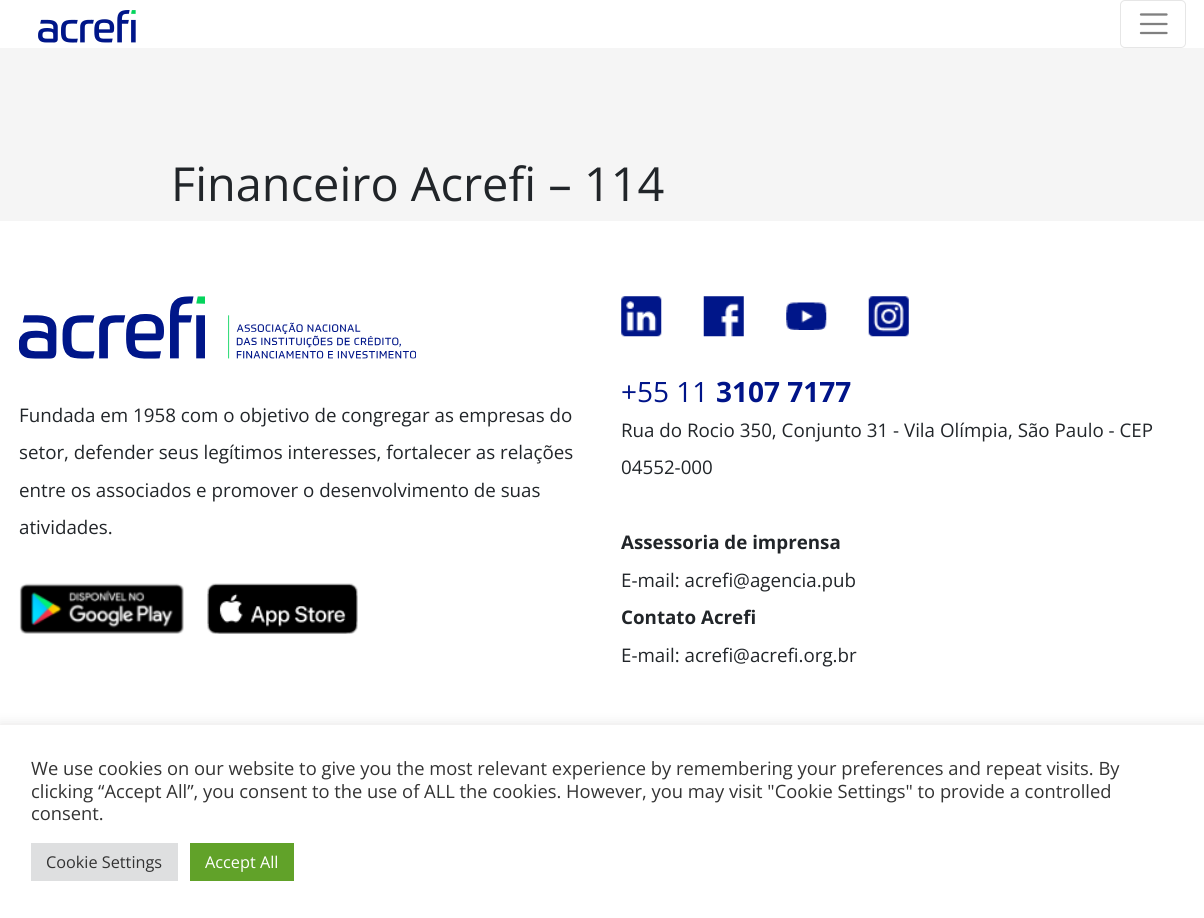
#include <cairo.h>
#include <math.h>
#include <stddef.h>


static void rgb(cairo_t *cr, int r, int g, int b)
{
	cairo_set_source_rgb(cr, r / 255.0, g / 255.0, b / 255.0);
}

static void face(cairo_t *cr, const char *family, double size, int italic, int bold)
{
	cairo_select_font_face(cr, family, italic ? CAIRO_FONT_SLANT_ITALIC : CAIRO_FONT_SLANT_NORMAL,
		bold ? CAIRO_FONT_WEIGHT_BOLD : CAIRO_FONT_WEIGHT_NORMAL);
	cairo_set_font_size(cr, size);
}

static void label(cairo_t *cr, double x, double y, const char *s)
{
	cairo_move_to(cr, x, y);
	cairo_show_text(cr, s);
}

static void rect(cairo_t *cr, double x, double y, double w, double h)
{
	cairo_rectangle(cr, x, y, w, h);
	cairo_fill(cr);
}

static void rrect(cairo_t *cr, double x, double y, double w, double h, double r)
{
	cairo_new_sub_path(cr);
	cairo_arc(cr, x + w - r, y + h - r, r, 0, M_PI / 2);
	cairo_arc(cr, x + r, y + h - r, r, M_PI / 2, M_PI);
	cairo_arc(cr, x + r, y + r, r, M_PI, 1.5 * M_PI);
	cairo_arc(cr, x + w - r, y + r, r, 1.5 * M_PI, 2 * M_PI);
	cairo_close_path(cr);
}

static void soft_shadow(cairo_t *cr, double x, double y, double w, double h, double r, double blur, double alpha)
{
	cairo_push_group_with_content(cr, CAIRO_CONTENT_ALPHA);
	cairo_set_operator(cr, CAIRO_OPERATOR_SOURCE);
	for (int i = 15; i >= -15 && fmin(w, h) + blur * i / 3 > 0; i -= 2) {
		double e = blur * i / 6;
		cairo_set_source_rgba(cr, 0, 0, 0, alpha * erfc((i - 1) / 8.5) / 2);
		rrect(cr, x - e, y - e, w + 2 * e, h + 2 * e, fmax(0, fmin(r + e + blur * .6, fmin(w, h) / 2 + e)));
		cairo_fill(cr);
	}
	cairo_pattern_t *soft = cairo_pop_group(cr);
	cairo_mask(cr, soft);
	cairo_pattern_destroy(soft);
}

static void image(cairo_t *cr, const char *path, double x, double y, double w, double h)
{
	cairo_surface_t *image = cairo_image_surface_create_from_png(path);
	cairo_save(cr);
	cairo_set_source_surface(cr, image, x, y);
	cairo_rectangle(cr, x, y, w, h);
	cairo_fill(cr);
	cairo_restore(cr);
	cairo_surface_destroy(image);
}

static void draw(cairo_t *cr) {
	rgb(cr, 245, 245, 245);
	cairo_paint(cr);
	rgb(cr, 255, 255, 255);
	rect(cr, 0, 0, 1204, 48);
	image(cr, "image0.png", 38, 10, 98, 33);
	rrect(cr, 1120.5, 0.5, 65, 47, 4.5);
	rgb(cr, 230, 230, 230);
	cairo_set_line_width(cr, 1);
	cairo_stroke(cr);
	cairo_new_path(cr);
	cairo_move_to(cr, 1141, 14.5);
	cairo_line_to(cr, 1166.5, 14.5);
	cairo_move_to(cr, 1141, 24);
	cairo_line_to(cr, 1166.5, 24);
	cairo_move_to(cr, 1141, 33);
	cairo_line_to(cr, 1166.5, 33);
	rgb(cr, 128, 128, 128);
	cairo_set_line_width(cr, 2.3);
	cairo_set_line_cap(cr, CAIRO_LINE_CAP_ROUND);
	cairo_stroke(cr);
	face(cr, "Open Sans", 46.9, 0, 0);
	rgb(cr, 33, 37, 41);
	label(cr, 171, 201, "Financeiro Acrefi – 114");
	rgb(cr, 255, 255, 255);
	rect(cr, 0, 221, 1204, 504);
	image(cr, "image1.png", 19, 296, 397, 63);
	face(cr, "Open Sans", 18.75, 0, 0);
	rgb(cr, 33, 37, 41);
	label(cr, 19, 422, "Fundada em 1958 com o objetivo de congregar as empresas do");
	label(cr, 19, 459, "setor, defender seus legítimos interesses, fortalecer as relações");
	label(cr, 19, 497, "entre os associados e promover o desenvolvimento de suas");
	label(cr, 19, 534, "atividades.");
	image(cr, "image2.png", 19, 583, 165, 51);
	image(cr, "image3.png", 207, 583, 151, 51);
	image(cr, "image4.png", 621, 296, 41, 41);
	image(cr, "image5.png", 703, 296, 41, 41);
	image(cr, "image6.png", 786, 302, 41, 28);
	image(cr, "image7.png", 868, 296, 41, 41);
	face(cr, "Open Sans", 28, 0, 0);
	rgb(cr, 0, 20, 137);
	label(cr, 621, 402, "+55 11");
	face(cr, "Open Sans", 28, 0, 1);
	label(cr, 716, 402, "3107 7177");
	face(cr, "Open Sans", 18.75, 0, 0);
	rgb(cr, 33, 37, 41);
	label(cr, 621, 437, "Rua do Rocio 350, Conjunto 31 - Vila Olímpia, São Paulo - CEP");
	label(cr, 621, 474, "04552-000");
	face(cr, "Open Sans", 18.75, 0, 1);
	label(cr, 621, 549, "Assessoria de imprensa");
	face(cr, "Open Sans", 18.75, 0, 0);
	label(cr, 621, 587, "E-mail: acrefi@agencia.pub");
	face(cr, "Open Sans", 18.75, 0, 1);
	label(cr, 621, 624, "Contato Acrefi");
	face(cr, "Open Sans", 18.75, 0, 0);
	label(cr, 621, 662, "E-mail: acrefi@acrefi.org.br");
	rgb(cr, 172, 171, 171);
	soft_shadow(cr, 0, 724, 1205, 194, 0, 6, 0.3);
	rgb(cr, 255, 255, 255);
	rect(cr, 0, 725, 1204, 193);
	face(cr, "Open Sans", 18.33, 0, 0);
	rgb(cr, 51, 51, 51);
	label(cr, 31, 775, "We use cookies on our website to give you the most relevant experience by remembering your preferences and repeat visits. By");
	label(cr, 31, 798, "clicking “Accept All”, you consent to the use of ALL the cookies. However, you may visit \"Cookie Settings\" to provide a controlled");
	label(cr, 31, 820, "consent.");
	rgb(cr, 222, 223, 224);
	rect(cr, 31, 843, 147, 38);
	face(cr, "Open Sans", 16.25, 0, 0);
	rgb(cr, 51, 51, 51);
	label(cr, 46, 868, "Cookie Settings");
	rgb(cr, 97, 162, 41);
	rect(cr, 190, 843, 104, 38);
	rgb(cr, 255, 255, 255);
	label(cr, 205, 868, "Accept All");
}

int main(void) {
	cairo_surface_t *surface = cairo_image_surface_create(CAIRO_FORMAT_RGB24, 1204, 918);
	cairo_t *cr = cairo_create(surface);
	cairo_font_options_t *options = cairo_font_options_create();
	cairo_font_options_set_hint_metrics(options, CAIRO_HINT_METRICS_OFF);
	cairo_font_options_set_hint_style(options, CAIRO_HINT_STYLE_NONE);
	cairo_set_font_options(cr, options);
	cairo_set_miter_limit(cr, 4);
	draw(cr);
	cairo_surface_write_to_png(surface, "render.png");
	cairo_font_options_destroy(options);
	cairo_destroy(cr);
	cairo_surface_destroy(surface);
	return 0;
}
